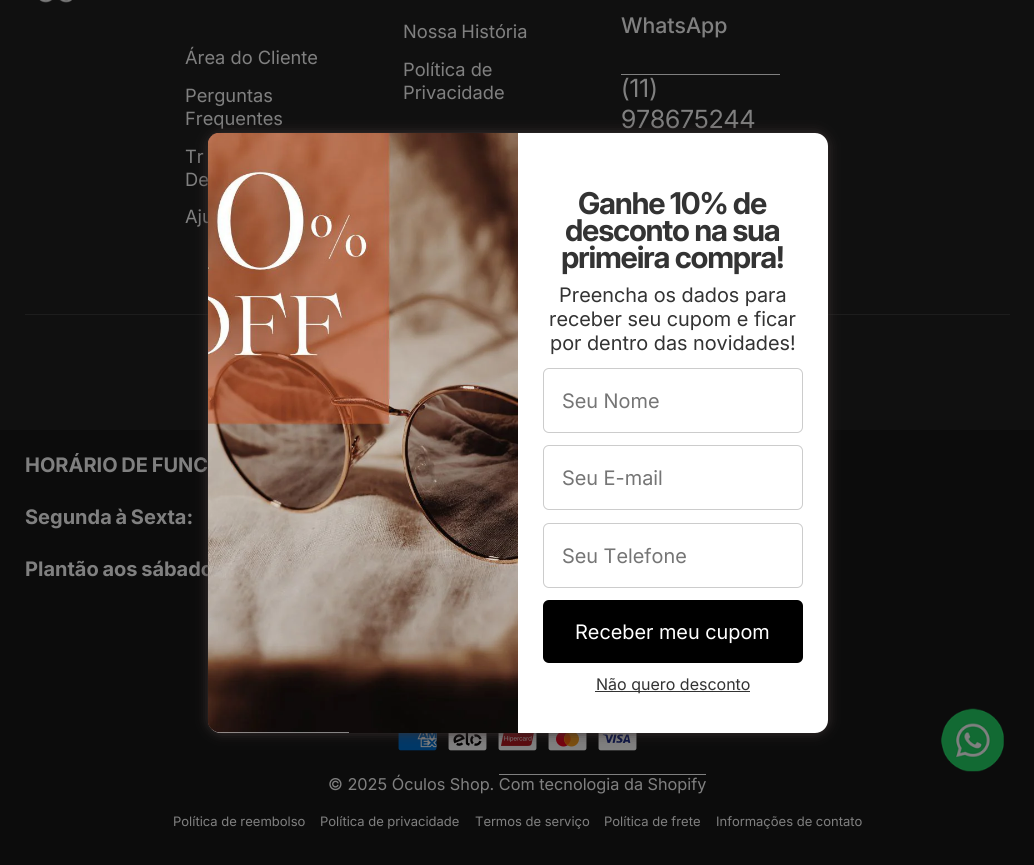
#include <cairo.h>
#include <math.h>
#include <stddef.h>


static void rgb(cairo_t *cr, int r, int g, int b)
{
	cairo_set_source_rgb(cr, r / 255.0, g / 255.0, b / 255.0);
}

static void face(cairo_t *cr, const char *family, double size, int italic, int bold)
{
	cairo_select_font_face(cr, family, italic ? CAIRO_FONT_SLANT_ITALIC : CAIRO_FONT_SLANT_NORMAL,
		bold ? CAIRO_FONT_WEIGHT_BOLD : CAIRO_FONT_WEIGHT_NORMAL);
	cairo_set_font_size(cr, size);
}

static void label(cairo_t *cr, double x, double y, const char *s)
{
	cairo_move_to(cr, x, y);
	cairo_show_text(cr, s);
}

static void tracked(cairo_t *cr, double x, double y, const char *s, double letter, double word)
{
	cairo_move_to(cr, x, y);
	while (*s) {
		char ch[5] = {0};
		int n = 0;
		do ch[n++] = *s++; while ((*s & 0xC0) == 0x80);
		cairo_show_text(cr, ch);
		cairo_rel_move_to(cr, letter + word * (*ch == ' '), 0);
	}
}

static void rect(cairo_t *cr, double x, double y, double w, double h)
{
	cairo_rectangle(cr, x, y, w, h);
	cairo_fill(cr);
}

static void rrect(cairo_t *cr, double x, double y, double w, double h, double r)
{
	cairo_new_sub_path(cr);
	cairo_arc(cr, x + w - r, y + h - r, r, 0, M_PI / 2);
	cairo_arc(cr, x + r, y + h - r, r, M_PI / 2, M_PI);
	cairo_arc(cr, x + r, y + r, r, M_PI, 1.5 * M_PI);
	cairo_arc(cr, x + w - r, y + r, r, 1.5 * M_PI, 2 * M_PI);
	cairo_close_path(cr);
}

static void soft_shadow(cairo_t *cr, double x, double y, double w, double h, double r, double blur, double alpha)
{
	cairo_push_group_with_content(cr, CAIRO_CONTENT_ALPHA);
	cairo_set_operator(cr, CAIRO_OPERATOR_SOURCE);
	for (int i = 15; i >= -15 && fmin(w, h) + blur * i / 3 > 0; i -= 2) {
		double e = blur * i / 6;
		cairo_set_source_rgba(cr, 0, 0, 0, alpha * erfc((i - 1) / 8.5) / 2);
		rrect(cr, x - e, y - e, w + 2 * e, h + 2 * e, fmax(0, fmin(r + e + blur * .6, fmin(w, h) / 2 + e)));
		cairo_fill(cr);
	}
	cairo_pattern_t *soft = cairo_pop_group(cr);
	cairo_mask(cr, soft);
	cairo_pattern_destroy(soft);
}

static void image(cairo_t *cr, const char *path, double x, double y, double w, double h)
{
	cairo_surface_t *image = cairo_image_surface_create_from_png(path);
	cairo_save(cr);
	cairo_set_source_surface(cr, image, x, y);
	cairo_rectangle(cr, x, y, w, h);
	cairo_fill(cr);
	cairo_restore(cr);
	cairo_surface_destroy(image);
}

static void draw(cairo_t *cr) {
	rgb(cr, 12, 12, 12);
	cairo_paint(cr);
	rgb(cr, 16, 16, 16);
	rect(cr, 0, 0, 1034, 430);
	image(cr, "image0.png", 39, 0, 33, 3);
	face(cr, "Inter", 18.25, 0, 0);
	rgb(cr, 128, 128, 128);
	label(cr, 185, 64, "Área do Cliente");
	label(cr, 185, 102, "Perguntas");
	label(cr, 185, 125, "Frequentes");
	label(cr, 185, 163, "Tr");
	label(cr, 185, 186, "De");
	label(cr, 185, 223, "Aju");
	tracked(cr, 403, 38, "Nossa História", 0, -1);
	label(cr, 403, 76, "Política de");
	label(cr, 403, 99, "Privacidade");
	face(cr, "Inter Medium", 21.5, 0, 0);
	label(cr, 621, 33, "WhatsApp");
	rect(cr, 621, 74, 159, 1);
	face(cr, "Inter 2", 25, 0, 0);
	label(cr, 621, 97, "(11)");
	label(cr, 621, 128, "978675244");
	rgb(cr, 29, 29, 29);
	rect(cr, 25, 314, 985, 1);
	face(cr, "Inter", 20, 0, 1);
	rgb(cr, 128, 128, 128);
	tracked(cr, 25, 472, "HORÁRIO DE FUNC", 0, -1);
	tracked(cr, 25, 524, "Segunda à Sexta:", 0, -1);
	tracked(cr, 25, 576, "Plantão aos sábado", 0, -1);
	image(cr, "image1.png", 398, 733, 39, 18);
	image(cr, "image2.png", 448, 733, 39, 18);
	image(cr, "image3.png", 498, 733, 39, 18);
	image(cr, "image4.png", 548, 733, 39, 18);
	image(cr, "image5.png", 598, 733, 39, 18);
	face(cr, "Inter", 16.25, 0, 0);
	label(cr, 328, 790, "© 2025 Óculos Shop. Com tecnologia da Shopify");
	rect(cr, 499, 774, 207, 1);
	face(cr, "Inter", 13, 0, 0);
	label(cr, 173, 826, "Política de reembolso");
	label(cr, 320, 826, "Política de privacidade");
	label(cr, 475, 826, "Termos de serviço");
	label(cr, 604, 826, "Política de frete");
	label(cr, 716, 826, "Informações de contato");
	rgb(cr, 56, 47, 47);
	soft_shadow(cr, 208, 133, 620, 600, 13, 6, 1);
	rgb(cr, 255, 255, 255);
	rrect(cr, 208, 133, 620, 600, 13);
	cairo_fill(cr);
	image(cr, "image6.png", 208, 133, 310, 600);
	face(cr, "Inter 2", 30, 0, 1);
	rgb(cr, 51, 51, 51);
	tracked(cr, 578, 214, "Ganhe 10% de", -1.25, 0);
	tracked(cr, 565, 241, "desconto na sua", -1.25, 0);
	tracked(cr, 561, 268, "primeira compra!", -1.25, 0);
	face(cr, "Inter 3", 20, 0, 0);
	label(cr, 559, 302, "Preencha os dados para");
	label(cr, 549, 326, "receber seu cupom e ficar");
	label(cr, 550, 350, "por dentro das novidades!");
	rrect(cr, 543.5, 368.5, 259, 64, 5.5);
	rgb(cr, 204, 204, 204);
	cairo_set_line_width(cr, 1);
	cairo_stroke(cr);
	rgb(cr, 117, 117, 117);
	label(cr, 562, 408, "Seu Nome");
	rrect(cr, 543.5, 445.5, 259, 64, 5.5);
	rgb(cr, 204, 204, 204);
	cairo_stroke(cr);
	rgb(cr, 117, 117, 117);
	label(cr, 562, 485, "Seu E-mail");
	rrect(cr, 543.5, 523.5, 259, 64, 5.5);
	rgb(cr, 204, 204, 204);
	cairo_stroke(cr);
	rgb(cr, 117, 117, 117);
	label(cr, 562, 563, "Seu Telefone");
	rgb(cr, 0, 0, 0);
	rrect(cr, 543, 600, 260, 63, 6);
	cairo_fill(cr);
	rgb(cr, 255, 255, 255);
	label(cr, 575, 639, "Receber meu cupom");
	rgb(cr, 51, 51, 51);
	rect(cr, 595, 691, 155, 1);
	face(cr, "Inter", 16, 0, 0);
	label(cr, 596, 690, "Não quero desconto");
	image(cr, "image7.png", 941, 708, 63, 64);
}

int main(void) {
	cairo_surface_t *surface = cairo_image_surface_create(CAIRO_FORMAT_RGB24, 1034, 865);
	cairo_t *cr = cairo_create(surface);
	cairo_font_options_t *options = cairo_font_options_create();
	cairo_font_options_set_hint_metrics(options, CAIRO_HINT_METRICS_OFF);
	cairo_font_options_set_hint_style(options, CAIRO_HINT_STYLE_NONE);
	cairo_set_font_options(cr, options);
	cairo_set_miter_limit(cr, 4);
	draw(cr);
	cairo_surface_write_to_png(surface, "render.png");
	cairo_font_options_destroy(options);
	cairo_destroy(cr);
	cairo_surface_destroy(surface);
	return 0;
}
